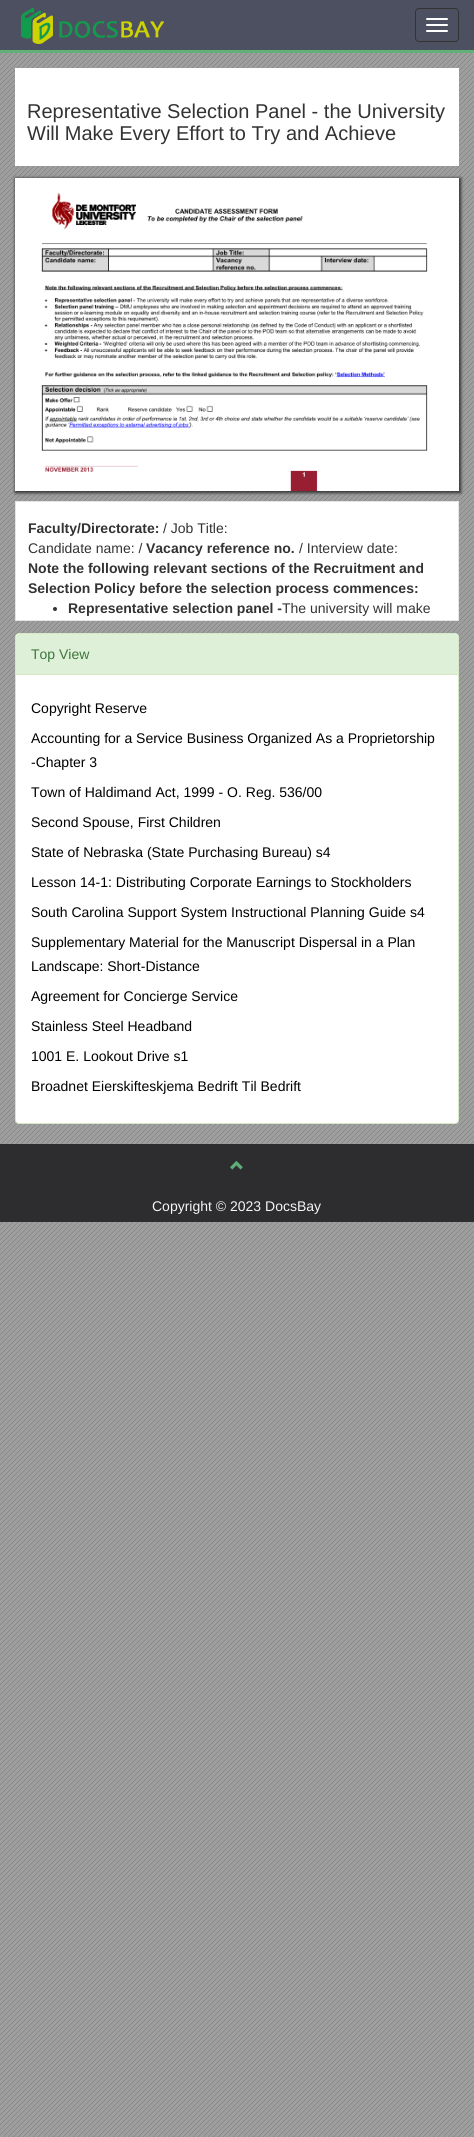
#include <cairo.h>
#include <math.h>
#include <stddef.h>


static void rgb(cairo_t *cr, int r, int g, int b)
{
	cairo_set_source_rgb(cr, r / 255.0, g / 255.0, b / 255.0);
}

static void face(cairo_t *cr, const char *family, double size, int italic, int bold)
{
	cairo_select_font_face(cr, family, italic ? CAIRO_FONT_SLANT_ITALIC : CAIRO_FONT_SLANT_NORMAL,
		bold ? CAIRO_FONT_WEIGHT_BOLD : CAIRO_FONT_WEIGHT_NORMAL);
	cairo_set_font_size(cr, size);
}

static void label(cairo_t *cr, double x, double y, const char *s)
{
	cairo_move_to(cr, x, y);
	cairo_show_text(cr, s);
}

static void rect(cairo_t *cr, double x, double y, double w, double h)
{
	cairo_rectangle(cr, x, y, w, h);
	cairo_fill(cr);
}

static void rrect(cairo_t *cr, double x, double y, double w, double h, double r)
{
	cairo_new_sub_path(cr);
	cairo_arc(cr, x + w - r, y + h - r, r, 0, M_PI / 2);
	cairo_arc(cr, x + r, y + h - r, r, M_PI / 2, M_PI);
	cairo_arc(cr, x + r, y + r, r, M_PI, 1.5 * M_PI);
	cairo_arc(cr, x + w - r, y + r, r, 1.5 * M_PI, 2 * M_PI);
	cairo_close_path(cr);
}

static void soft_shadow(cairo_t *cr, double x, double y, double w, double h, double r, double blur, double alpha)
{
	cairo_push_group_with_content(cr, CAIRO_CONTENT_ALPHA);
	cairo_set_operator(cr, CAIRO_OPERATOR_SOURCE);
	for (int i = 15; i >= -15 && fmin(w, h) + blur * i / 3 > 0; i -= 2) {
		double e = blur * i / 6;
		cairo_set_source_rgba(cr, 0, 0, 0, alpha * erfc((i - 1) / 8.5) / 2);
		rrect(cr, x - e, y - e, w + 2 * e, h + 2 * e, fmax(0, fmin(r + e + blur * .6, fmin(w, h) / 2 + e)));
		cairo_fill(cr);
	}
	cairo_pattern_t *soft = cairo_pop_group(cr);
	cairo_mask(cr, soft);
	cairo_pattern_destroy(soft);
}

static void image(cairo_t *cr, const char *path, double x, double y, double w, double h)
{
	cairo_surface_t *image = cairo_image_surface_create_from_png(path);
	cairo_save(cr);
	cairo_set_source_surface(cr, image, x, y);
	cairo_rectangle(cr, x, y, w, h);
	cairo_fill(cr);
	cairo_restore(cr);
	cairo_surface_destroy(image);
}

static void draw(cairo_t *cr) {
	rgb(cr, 255, 255, 255);
	cairo_paint(cr);
	image(cr, "image0.png", 0, 53, 474, 2084);
	rgb(cr, 77, 80, 97);
	rect(cr, 0, 0, 474, 50);
	rgb(cr, 96, 176, 120);
	rect(cr, 0, 50, 474, 3);
	image(cr, "image1.png", 21, 8, 143, 36);
	rrect(cr, 415.5, 8.5, 43, 33, 3.5);
	rgb(cr, 51, 51, 51);
	cairo_set_line_width(cr, 1);
	cairo_stroke(cr);
	rgb(cr, 255, 255, 255);
	rrect(cr, 426, 18, 22, 2, 1);
	cairo_fill(cr);
	rrect(cr, 426, 24, 22, 2, 1);
	cairo_fill(cr);
	rrect(cr, 426, 30, 22, 2, 1);
	cairo_fill(cr);
	rect(cr, 15, 68, 444, 98);
	face(cr, "Liberation Sans", 20, 0, 0);
	rgb(cr, 51, 51, 51);
	label(cr, 27, 118, "Representative Selection Panel - the University");
	label(cr, 27, 140, "Will Make Every Effort to Try and Achieve");
	rgb(cr, 51, 51, 51);
	soft_shadow(cr, 15, 178, 446, 315, 0, 1.5, 1);
	image(cr, "image2.png", 15, 178, 444, 313);
	rgb(cr, 255, 255, 255);
	cairo_rectangle(cr, 15.5, 501.5, 443, 119);
	cairo_fill_preserve(cr);
	rgb(cr, 229, 229, 229);
	cairo_stroke(cr);
	face(cr, "Liberation Sans", 14, 0, 1);
	rgb(cr, 51, 51, 51);
	label(cr, 28, 533, "Faculty/Directorate:");
	face(cr, "Liberation Sans", 14, 0, 0);
	label(cr, 163, 533, "/ Job Title:");
	label(cr, 28, 553, "Candidate name: /");
	face(cr, "Liberation Sans", 14, 0, 1);
	label(cr, 146, 553, "Vacancy reference no.");
	face(cr, "Liberation Sans", 14, 0, 0);
	label(cr, 299, 553, "/ Interview date:");
	face(cr, "Liberation Sans", 14, 0, 1);
	label(cr, 28, 573, "Note the following relevant sections of the Recruitment and");
	label(cr, 28, 593, "Selection Policy before the selection process commences:");
	cairo_new_path(cr);
	cairo_arc(cr, 55, 609, 2, 0, 2 * M_PI);
	cairo_fill(cr);
	label(cr, 68, 613, "Representative selection panel -");
	face(cr, "Liberation Sans", 14, 0, 0);
	label(cr, 282, 613, "The university will make");
	rgb(cr, 255, 255, 255);
	rrect(cr, 15.5, 633.5, 443, 490, 3.5);
	cairo_fill_preserve(cr);
	rgb(cr, 214, 233, 198);
	cairo_stroke(cr);
	rgb(cr, 223, 240, 216);
	cairo_new_path(cr);
	cairo_move_to(cr, 19, 634);
	cairo_line_to(cr, 455, 634);
	cairo_curve_to(cr, 456.5, 634, 458, 635.5, 458, 637);
	cairo_line_to(cr, 458, 675);
	cairo_line_to(cr, 16, 675);
	cairo_line_to(cr, 16, 637);
	cairo_curve_to(cr, 16, 635.5, 17.5, 634, 19, 634);
	cairo_close_path(cr);
	cairo_fill(cr);
	rgb(cr, 214, 233, 198);
	rect(cr, 16, 674, 442, 1);
	rgb(cr, 60, 118, 61);
	label(cr, 31, 659, "Top View");
	rgb(cr, 0, 0, 0);
	label(cr, 31, 713, "Copyright Reserve");
	label(cr, 31, 743, "Accounting for a Service Business Organized As a Proprietorship");
	label(cr, 31, 767, "-Chapter 3");
	label(cr, 31, 797, "Town of Haldimand Act, 1999 - O. Reg. 536/00");
	label(cr, 31, 827, "Second Spouse, First Children");
	label(cr, 31, 857, "State of Nebraska (State Purchasing Bureau) s4");
	label(cr, 31, 887, "Lesson 14-1: Distributing Corporate Earnings to Stockholders");
	label(cr, 31, 917, "South Carolina Support System Instructional Planning Guide s4");
	label(cr, 31, 947, "Supplementary Material for the Manuscript Dispersal in a Plan");
	label(cr, 31, 971, "Landscape: Short-Distance");
	label(cr, 31, 1001, "Agreement for Concierge Service");
	label(cr, 31, 1031, "Stainless Steel Headband");
	label(cr, 31, 1061, "1001 E. Lookout Drive s1");
	label(cr, 31, 1091, "Broadnet Eierskifteskjema Bedrift Til Bedrift");
	rgb(cr, 45, 45, 48);
	rect(cr, 0, 1144, 474, 78);
	image(cr, "image3.png", 230, 1160, 13, 10);
	rgb(cr, 245, 245, 245);
	label(cr, 152, 1211, "Copyright © 2023 DocsBay");
}

int main(void) {
	cairo_surface_t *surface = cairo_image_surface_create(CAIRO_FORMAT_RGB24, 474, 2137);
	cairo_t *cr = cairo_create(surface);
	cairo_font_options_t *options = cairo_font_options_create();
	cairo_font_options_set_hint_metrics(options, CAIRO_HINT_METRICS_OFF);
	cairo_font_options_set_hint_style(options, CAIRO_HINT_STYLE_NONE);
	cairo_set_font_options(cr, options);
	cairo_set_miter_limit(cr, 4);
	draw(cr);
	cairo_surface_write_to_png(surface, "render.png");
	cairo_font_options_destroy(options);
	cairo_destroy(cr);
	cairo_surface_destroy(surface);
	return 0;
}
